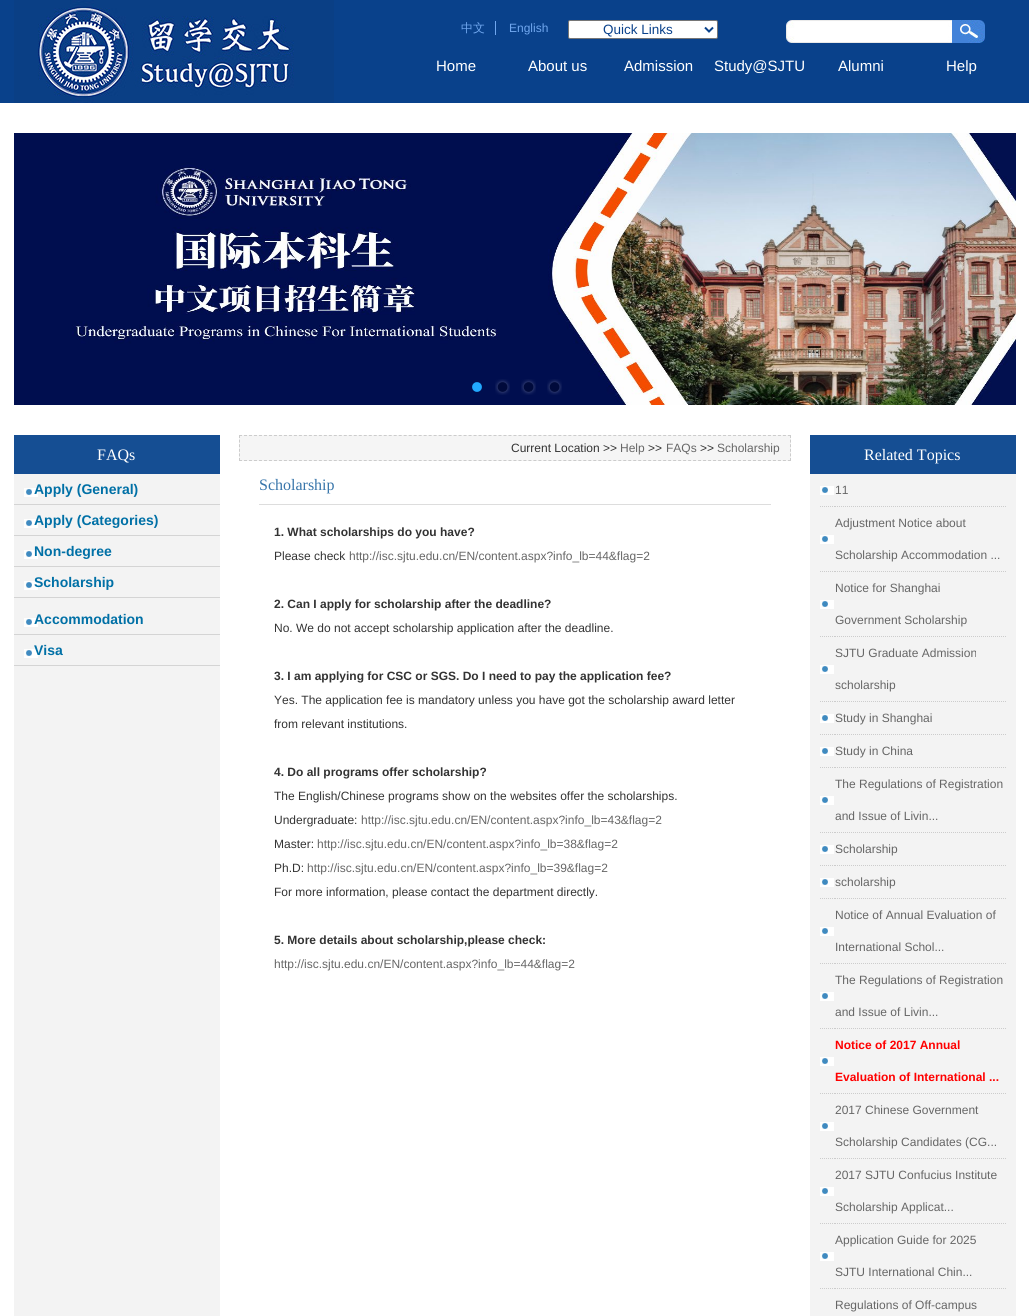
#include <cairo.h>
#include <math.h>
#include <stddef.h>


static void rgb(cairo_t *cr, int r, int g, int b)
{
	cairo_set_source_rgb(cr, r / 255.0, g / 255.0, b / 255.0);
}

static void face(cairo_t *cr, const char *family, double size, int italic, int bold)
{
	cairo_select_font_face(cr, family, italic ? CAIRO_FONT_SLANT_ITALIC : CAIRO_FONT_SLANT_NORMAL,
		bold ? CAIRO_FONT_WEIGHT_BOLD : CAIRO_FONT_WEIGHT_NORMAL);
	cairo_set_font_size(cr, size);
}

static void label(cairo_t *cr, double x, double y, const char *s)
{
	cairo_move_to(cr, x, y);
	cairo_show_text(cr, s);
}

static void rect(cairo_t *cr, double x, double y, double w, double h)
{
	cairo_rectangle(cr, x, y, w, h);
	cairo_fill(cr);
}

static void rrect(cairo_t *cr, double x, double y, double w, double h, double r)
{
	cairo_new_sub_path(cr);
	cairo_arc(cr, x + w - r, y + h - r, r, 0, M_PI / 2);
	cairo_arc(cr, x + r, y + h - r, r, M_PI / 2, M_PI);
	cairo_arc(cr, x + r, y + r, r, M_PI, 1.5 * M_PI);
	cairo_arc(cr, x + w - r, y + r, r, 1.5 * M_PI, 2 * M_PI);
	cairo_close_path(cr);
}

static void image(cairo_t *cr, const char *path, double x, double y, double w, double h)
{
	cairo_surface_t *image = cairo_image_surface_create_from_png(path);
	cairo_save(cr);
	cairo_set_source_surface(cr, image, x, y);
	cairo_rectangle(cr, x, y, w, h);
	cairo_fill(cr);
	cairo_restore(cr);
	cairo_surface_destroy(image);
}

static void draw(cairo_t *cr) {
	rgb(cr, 255, 255, 255);
	cairo_paint(cr);
	rgb(cr, 9, 65, 139);
	rect(cr, 0, 0, 1029, 103);
	image(cr, "image0.png", 14, 0, 320, 103);
	face(cr, "WenQuanYi Zen Hei Medium", 12, 0, 0);
	rgb(cr, 112, 167, 239);
	label(cr, 461, 32, "中文");
	rect(cr, 495, 21, 1, 14);
	face(cr, "Liberation Sans", 12, 0, 0);
	label(cr, 509, 32, "English");
	rgb(cr, 255, 255, 255);
	rrect(cr, 568.5, 20.5, 149, 18, 1.5);
	cairo_fill_preserve(cr);
	rgb(cr, 118, 118, 118);
	cairo_set_line_width(cr, 1);
	cairo_stroke(cr);
	cairo_new_path(cr);
	cairo_move_to(cr, 705, 27.5);
	cairo_line_to(cr, 709, 31.5);
	cairo_line_to(cr, 713, 27.5);
	rgb(cr, 9, 65, 139);
	cairo_set_line_width(cr, 2);
	cairo_stroke(cr);
	face(cr, "Liberation Sans", 13.5, 0, 0);
	label(cr, 603, 34, "Quick Links");
	image(cr, "image1.png", 786, 20, 166, 23);
	image(cr, "image2.png", 952, 20, 33, 23);
	face(cr, "Liberation Sans", 15, 0, 0);
	rgb(cr, 255, 255, 255);
	label(cr, 436, 71, "Home");
	label(cr, 528, 71, "About us");
	label(cr, 624, 71, "Admission");
	label(cr, 714, 71, "Study@SJTU");
	label(cr, 838, 71, "Alumni");
	label(cr, 946, 71, "Help");
	image(cr, "image3.png", 14, 133, 1002, 272);
	image(cr, "image4.png", 472, 382, 10, 10);
	image(cr, "image5.png", 495, 379, 15, 16);
	image(cr, "image5.png", 521, 379, 15, 16);
	image(cr, "image5.png", 547, 379, 15, 16);
	rgb(cr, 243, 243, 243);
	rect(cr, 14, 474, 206, 842);
	rgb(cr, 21, 78, 147);
	rect(cr, 14, 435, 206, 39);
	face(cr, "Liberation Serif", 16, 0, 0);
	rgb(cr, 255, 255, 255);
	label(cr, 97, 460, "FAQs");
	image(cr, "image6.png", 24, 488, 14, 9);
	rgb(cr, 212, 212, 212);
	rect(cr, 14, 504, 206, 1);
	face(cr, "Liberation Sans", 14, 0, 1);
	rgb(cr, 0, 112, 166);
	label(cr, 34, 494, "Apply (General)");
	image(cr, "image6.png", 24, 519, 14, 9);
	rgb(cr, 212, 212, 212);
	rect(cr, 14, 535, 206, 1);
	rgb(cr, 0, 112, 166);
	label(cr, 34, 525, "Apply (Categories)");
	image(cr, "image6.png", 24, 550, 14, 9);
	rgb(cr, 212, 212, 212);
	rect(cr, 14, 566, 206, 1);
	rgb(cr, 0, 112, 166);
	label(cr, 34, 556, "Non-degree");
	image(cr, "image6.png", 24, 581, 14, 9);
	rgb(cr, 212, 212, 212);
	rect(cr, 14, 597, 206, 1);
	rgb(cr, 0, 112, 166);
	label(cr, 34, 587, "Scholarship");
	image(cr, "image6.png", 24, 618, 14, 9);
	rgb(cr, 212, 212, 212);
	rect(cr, 14, 634, 206, 1);
	rgb(cr, 0, 112, 166);
	label(cr, 34, 624, "Accommodation");
	image(cr, "image6.png", 24, 649, 14, 9);
	rgb(cr, 212, 212, 212);
	rect(cr, 14, 665, 206, 1);
	rgb(cr, 0, 112, 166);
	label(cr, 34, 655, "Visa");
	rgb(cr, 245, 245, 245);
	rect(cr, 239, 435, 552, 26);
	cairo_new_path(cr);
	cairo_move_to(cr, 239, 435.5);
	cairo_line_to(cr, 791, 435.5);
	rgb(cr, 204, 204, 204);
	cairo_set_line_width(cr, 1);
	cairo_set_dash(cr, (double[]){3, 1.99}, 2, 0);
	cairo_stroke(cr);
	cairo_new_path(cr);
	cairo_move_to(cr, 790.5, 435);
	cairo_line_to(cr, 790.5, 461);
	cairo_set_dash(cr, (double[]){3, 1.6}, 2, 0);
	cairo_stroke(cr);
	cairo_new_path(cr);
	cairo_move_to(cr, 239, 460.5);
	cairo_line_to(cr, 791, 460.5);
	cairo_set_dash(cr, (double[]){3, 1.99}, 2, 0);
	cairo_stroke(cr);
	cairo_new_path(cr);
	cairo_move_to(cr, 239.5, 435);
	cairo_line_to(cr, 239.5, 461);
	cairo_set_dash(cr, (double[]){3, 1.6}, 2, 0);
	cairo_stroke(cr);
	face(cr, "Liberation Sans", 12, 0, 0);
	rgb(cr, 51, 51, 51);
	label(cr, 511, 452, "Current Location >>");
	rgb(cr, 102, 102, 102);
	label(cr, 620, 452, "Help");
	rgb(cr, 51, 51, 51);
	label(cr, 648, 452, ">>");
	rgb(cr, 102, 102, 102);
	label(cr, 666, 452, "FAQs");
	rgb(cr, 51, 51, 51);
	label(cr, 700, 452, ">>");
	rgb(cr, 102, 102, 102);
	label(cr, 717, 452, "Scholarship");
	rgb(cr, 221, 221, 221);
	rect(cr, 259, 504, 512, 1);
	face(cr, "Liberation Serif", 16, 0, 0);
	rgb(cr, 56, 117, 170);
	label(cr, 259, 490, "Scholarship");
	face(cr, "Liberation Sans", 12, 0, 1);
	rgb(cr, 51, 51, 51);
	label(cr, 274, 536, "1. What scholarships do you have?");
	face(cr, "Liberation Sans", 12, 0, 0);
	label(cr, 274, 560, "Please check");
	rgb(cr, 102, 102, 102);
	label(cr, 349, 560, "http://isc.sjtu.edu.cn/EN/content.aspx?info_lb=44&flag=2");
	face(cr, "Liberation Sans", 12, 0, 1);
	rgb(cr, 51, 51, 51);
	label(cr, 274, 608, "2. Can I apply for scholarship after the deadline?");
	face(cr, "Liberation Sans", 12, 0, 0);
	label(cr, 274, 632, "No. We do not accept scholarship application after the deadline.");
	face(cr, "Liberation Sans", 12, 0, 1);
	label(cr, 274, 680, "3. I am applying for CSC or SGS. Do I need to pay the application fee?");
	face(cr, "Liberation Sans", 12, 0, 0);
	label(cr, 274, 704, "Yes. The application fee is mandatory unless you have got the scholarship award letter");
	label(cr, 274, 728, "from relevant institutions.");
	face(cr, "Liberation Sans", 12, 0, 1);
	label(cr, 274, 776, "4. Do all programs offer scholarship?");
	face(cr, "Liberation Sans", 12, 0, 0);
	label(cr, 274, 800, "The English/Chinese programs show on the websites offer the scholarships.");
	label(cr, 274, 824, "Undergraduate:");
	rgb(cr, 102, 102, 102);
	label(cr, 361, 824, "http://isc.sjtu.edu.cn/EN/content.aspx?info_lb=43&flag=2");
	rgb(cr, 51, 51, 51);
	label(cr, 274, 848, "Master:");
	rgb(cr, 102, 102, 102);
	label(cr, 317, 848, "http://isc.sjtu.edu.cn/EN/content.aspx?info_lb=38&flag=2");
	rgb(cr, 51, 51, 51);
	label(cr, 274, 872, "Ph.D:");
	rgb(cr, 102, 102, 102);
	label(cr, 307, 872, "http://isc.sjtu.edu.cn/EN/content.aspx?info_lb=39&flag=2");
	rgb(cr, 51, 51, 51);
	label(cr, 274, 896, "For more information, please contact the department directly.");
	face(cr, "Liberation Sans", 12, 0, 1);
	label(cr, 274, 944, "5. More details about scholarship,please check:");
	face(cr, "Liberation Sans", 12, 0, 0);
	rgb(cr, 102, 102, 102);
	label(cr, 274, 968, "http://isc.sjtu.edu.cn/EN/content.aspx?info_lb=44&flag=2");
	rgb(cr, 243, 243, 243);
	rect(cr, 810, 474, 206, 842);
	rgb(cr, 21, 78, 147);
	rect(cr, 810, 435, 206, 39);
	face(cr, "Liberation Serif", 16, 0, 0);
	rgb(cr, 255, 255, 255);
	label(cr, 864, 460, "Related Topics");
	cairo_new_path(cr);
	cairo_move_to(cr, 820, 506.5);
	cairo_line_to(cr, 835, 506.5);
	rgb(cr, 204, 204, 204);
	cairo_set_dash(cr, (double[]){1, 1}, 2, 0);
	cairo_stroke(cr);
	image(cr, "image6.png", 820, 486, 14, 9);
	cairo_new_path(cr);
	cairo_move_to(cr, 835, 506.5);
	cairo_line_to(cr, 1006, 506.5);
	cairo_stroke(cr);
	face(cr, "Liberation Sans", 12, 0, 0);
	rgb(cr, 102, 102, 102);
	label(cr, 835, 494, "11");
	cairo_new_path(cr);
	cairo_move_to(cr, 820, 571.5);
	cairo_line_to(cr, 835, 571.5);
	rgb(cr, 204, 204, 204);
	cairo_stroke(cr);
	image(cr, "image6.png", 820, 535, 14, 9);
	cairo_new_path(cr);
	cairo_move_to(cr, 835, 571.5);
	cairo_line_to(cr, 1006, 571.5);
	cairo_stroke(cr);
	rgb(cr, 102, 102, 102);
	label(cr, 835, 527, "Adjustment Notice about");
	label(cr, 835, 559, "Scholarship Accommodation ...");
	cairo_new_path(cr);
	cairo_move_to(cr, 820, 636.5);
	cairo_line_to(cr, 835, 636.5);
	rgb(cr, 204, 204, 204);
	cairo_stroke(cr);
	image(cr, "image6.png", 820, 600, 14, 9);
	cairo_new_path(cr);
	cairo_move_to(cr, 835, 636.5);
	cairo_line_to(cr, 1006, 636.5);
	cairo_stroke(cr);
	rgb(cr, 102, 102, 102);
	label(cr, 835, 592, "Notice for Shanghai");
	label(cr, 835, 624, "Government Scholarship");
	cairo_new_path(cr);
	cairo_move_to(cr, 820, 701.5);
	cairo_line_to(cr, 835, 701.5);
	rgb(cr, 204, 204, 204);
	cairo_stroke(cr);
	image(cr, "image6.png", 820, 665, 14, 9);
	cairo_new_path(cr);
	cairo_move_to(cr, 835, 701.5);
	cairo_line_to(cr, 1006, 701.5);
	cairo_stroke(cr);
	rgb(cr, 102, 102, 102);
	label(cr, 835, 657, "SJTU Graduate Admission");
	label(cr, 835, 689, "scholarship");
	cairo_new_path(cr);
	cairo_move_to(cr, 820, 734.5);
	cairo_line_to(cr, 835, 734.5);
	rgb(cr, 204, 204, 204);
	cairo_stroke(cr);
	image(cr, "image6.png", 820, 714, 14, 9);
	cairo_new_path(cr);
	cairo_move_to(cr, 835, 734.5);
	cairo_line_to(cr, 1006, 734.5);
	cairo_stroke(cr);
	rgb(cr, 102, 102, 102);
	label(cr, 835, 722, "Study in Shanghai");
	cairo_new_path(cr);
	cairo_move_to(cr, 820, 767.5);
	cairo_line_to(cr, 835, 767.5);
	rgb(cr, 204, 204, 204);
	cairo_stroke(cr);
	image(cr, "image6.png", 820, 747, 14, 9);
	cairo_new_path(cr);
	cairo_move_to(cr, 835, 767.5);
	cairo_line_to(cr, 1006, 767.5);
	cairo_stroke(cr);
	rgb(cr, 102, 102, 102);
	label(cr, 835, 755, "Study in China");
	cairo_new_path(cr);
	cairo_move_to(cr, 820, 832.5);
	cairo_line_to(cr, 835, 832.5);
	rgb(cr, 204, 204, 204);
	cairo_stroke(cr);
	image(cr, "image6.png", 820, 796, 14, 9);
	cairo_new_path(cr);
	cairo_move_to(cr, 835, 832.5);
	cairo_line_to(cr, 1006, 832.5);
	cairo_stroke(cr);
	rgb(cr, 102, 102, 102);
	label(cr, 835, 788, "The Regulations of Registration");
	label(cr, 835, 820, "and Issue of Livin...");
	cairo_new_path(cr);
	cairo_move_to(cr, 820, 865.5);
	cairo_line_to(cr, 835, 865.5);
	rgb(cr, 204, 204, 204);
	cairo_stroke(cr);
	image(cr, "image6.png", 820, 845, 14, 9);
	cairo_new_path(cr);
	cairo_move_to(cr, 835, 865.5);
	cairo_line_to(cr, 1006, 865.5);
	cairo_stroke(cr);
	rgb(cr, 102, 102, 102);
	label(cr, 835, 853, "Scholarship");
	cairo_new_path(cr);
	cairo_move_to(cr, 820, 898.5);
	cairo_line_to(cr, 835, 898.5);
	rgb(cr, 204, 204, 204);
	cairo_stroke(cr);
	image(cr, "image6.png", 820, 878, 14, 9);
	cairo_new_path(cr);
	cairo_move_to(cr, 835, 898.5);
	cairo_line_to(cr, 1006, 898.5);
	cairo_stroke(cr);
	rgb(cr, 102, 102, 102);
	label(cr, 835, 886, "scholarship");
	cairo_new_path(cr);
	cairo_move_to(cr, 820, 963.5);
	cairo_line_to(cr, 835, 963.5);
	rgb(cr, 204, 204, 204);
	cairo_stroke(cr);
	image(cr, "image6.png", 820, 927, 14, 9);
	cairo_new_path(cr);
	cairo_move_to(cr, 835, 963.5);
	cairo_line_to(cr, 1006, 963.5);
	cairo_stroke(cr);
	rgb(cr, 102, 102, 102);
	label(cr, 835, 919, "Notice of Annual Evaluation of");
	label(cr, 835, 951, "International Schol...");
	cairo_new_path(cr);
	cairo_move_to(cr, 820, 1028.5);
	cairo_line_to(cr, 835, 1028.5);
	rgb(cr, 204, 204, 204);
	cairo_stroke(cr);
	image(cr, "image6.png", 820, 992, 14, 9);
	cairo_new_path(cr);
	cairo_move_to(cr, 835, 1028.5);
	cairo_line_to(cr, 1006, 1028.5);
	cairo_stroke(cr);
	rgb(cr, 102, 102, 102);
	label(cr, 835, 984, "The Regulations of Registration");
	label(cr, 835, 1016, "and Issue of Livin...");
	cairo_new_path(cr);
	cairo_move_to(cr, 820, 1093.5);
	cairo_line_to(cr, 835, 1093.5);
	rgb(cr, 204, 204, 204);
	cairo_stroke(cr);
	image(cr, "image6.png", 820, 1057, 14, 9);
	cairo_new_path(cr);
	cairo_move_to(cr, 835, 1093.5);
	cairo_line_to(cr, 1006, 1093.5);
	cairo_stroke(cr);
	face(cr, "Liberation Sans", 12, 0, 1);
	rgb(cr, 255, 0, 0);
	label(cr, 835, 1049, "Notice of 2017 Annual");
	label(cr, 835, 1081, "Evaluation of International ...");
	cairo_new_path(cr);
	cairo_move_to(cr, 820, 1158.5);
	cairo_line_to(cr, 835, 1158.5);
	rgb(cr, 204, 204, 204);
	cairo_stroke(cr);
	image(cr, "image6.png", 820, 1122, 14, 9);
	cairo_new_path(cr);
	cairo_move_to(cr, 835, 1158.5);
	cairo_line_to(cr, 1006, 1158.5);
	cairo_stroke(cr);
	face(cr, "Liberation Sans", 12, 0, 0);
	rgb(cr, 102, 102, 102);
	label(cr, 835, 1114, "2017 Chinese Government");
	label(cr, 835, 1146, "Scholarship Candidates (CG...");
	cairo_new_path(cr);
	cairo_move_to(cr, 820, 1223.5);
	cairo_line_to(cr, 835, 1223.5);
	rgb(cr, 204, 204, 204);
	cairo_stroke(cr);
	image(cr, "image6.png", 820, 1187, 14, 9);
	cairo_new_path(cr);
	cairo_move_to(cr, 835, 1223.5);
	cairo_line_to(cr, 1006, 1223.5);
	cairo_stroke(cr);
	rgb(cr, 102, 102, 102);
	label(cr, 835, 1179, "2017 SJTU Confucius Institute");
	label(cr, 835, 1211, "Scholarship Applicat...");
	cairo_new_path(cr);
	cairo_move_to(cr, 820, 1288.5);
	cairo_line_to(cr, 835, 1288.5);
	rgb(cr, 204, 204, 204);
	cairo_stroke(cr);
	image(cr, "image6.png", 820, 1252, 14, 9);
	cairo_new_path(cr);
	cairo_move_to(cr, 835, 1288.5);
	cairo_line_to(cr, 1006, 1288.5);
	cairo_stroke(cr);
	rgb(cr, 102, 102, 102);
	label(cr, 835, 1244, "Application Guide for 2025");
	label(cr, 835, 1276, "SJTU International Chin...");
	label(cr, 835, 1309, "Regulations of Off-campus");
}

int main(void) {
	cairo_surface_t *surface = cairo_image_surface_create(CAIRO_FORMAT_RGB24, 1029, 1316);
	cairo_t *cr = cairo_create(surface);
	cairo_font_options_t *options = cairo_font_options_create();
	cairo_font_options_set_hint_metrics(options, CAIRO_HINT_METRICS_OFF);
	cairo_font_options_set_hint_style(options, CAIRO_HINT_STYLE_NONE);
	cairo_set_font_options(cr, options);
	cairo_set_miter_limit(cr, 4);
	draw(cr);
	cairo_surface_write_to_png(surface, "render.png");
	cairo_font_options_destroy(options);
	cairo_destroy(cr);
	cairo_surface_destroy(surface);
	return 0;
}
